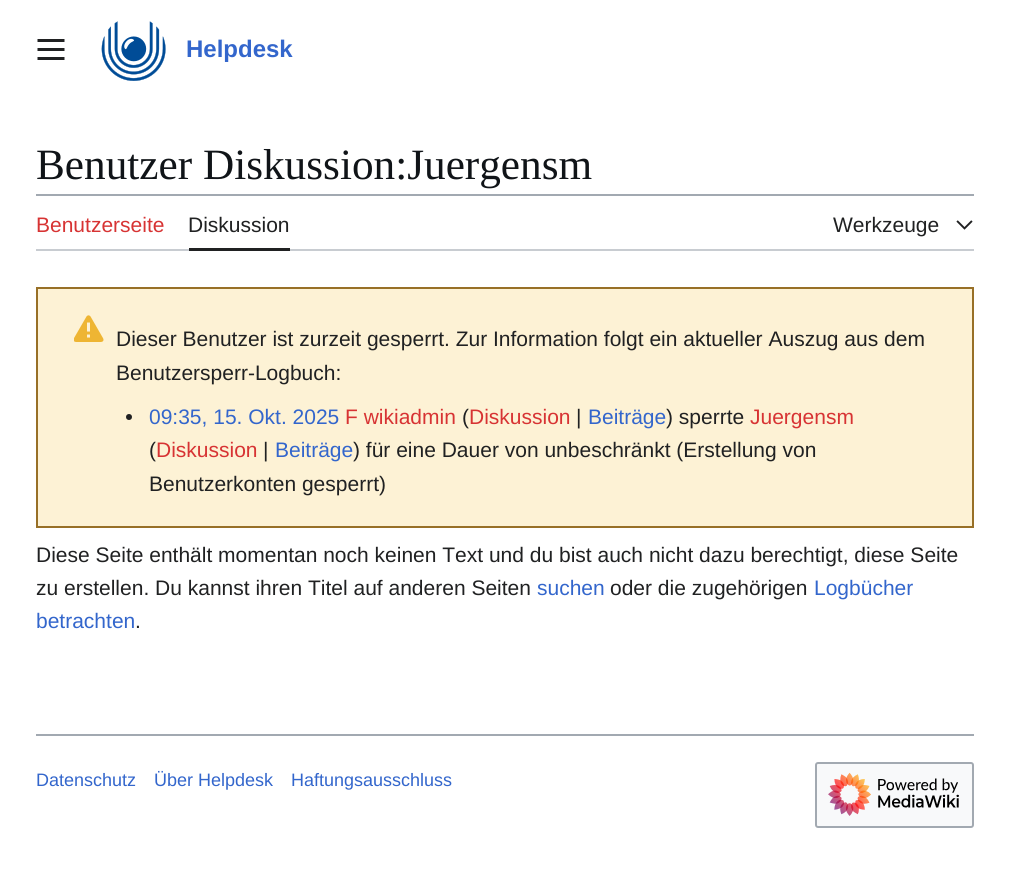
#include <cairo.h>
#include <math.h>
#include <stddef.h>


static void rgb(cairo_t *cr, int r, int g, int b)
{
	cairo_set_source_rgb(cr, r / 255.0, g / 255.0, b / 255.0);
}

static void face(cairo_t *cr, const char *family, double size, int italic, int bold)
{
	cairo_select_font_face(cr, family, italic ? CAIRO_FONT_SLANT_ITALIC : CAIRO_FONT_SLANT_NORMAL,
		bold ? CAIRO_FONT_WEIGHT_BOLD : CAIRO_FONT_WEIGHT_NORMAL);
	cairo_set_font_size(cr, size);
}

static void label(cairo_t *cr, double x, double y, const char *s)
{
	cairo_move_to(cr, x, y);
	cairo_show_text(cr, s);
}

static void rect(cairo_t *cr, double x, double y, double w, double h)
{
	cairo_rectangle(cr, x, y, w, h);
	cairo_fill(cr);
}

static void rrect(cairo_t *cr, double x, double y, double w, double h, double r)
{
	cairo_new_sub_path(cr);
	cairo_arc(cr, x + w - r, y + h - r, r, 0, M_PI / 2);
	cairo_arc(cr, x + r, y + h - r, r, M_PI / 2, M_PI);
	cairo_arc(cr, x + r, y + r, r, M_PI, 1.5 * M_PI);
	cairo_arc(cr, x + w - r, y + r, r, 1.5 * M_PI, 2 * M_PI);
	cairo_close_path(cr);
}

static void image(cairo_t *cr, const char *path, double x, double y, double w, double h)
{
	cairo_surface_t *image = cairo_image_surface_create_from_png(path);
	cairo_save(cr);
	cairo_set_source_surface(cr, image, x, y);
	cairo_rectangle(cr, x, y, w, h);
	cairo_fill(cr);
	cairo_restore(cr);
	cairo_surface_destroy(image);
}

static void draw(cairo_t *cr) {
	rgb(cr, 255, 255, 255);
	cairo_paint(cr);
	image(cr, "image0.png", 37, 39, 28, 21);
	image(cr, "image1.png", 101, 21, 65, 60);
	face(cr, "Liberation Sans", 24, 0, 1);
	rgb(cr, 51, 102, 204);
	label(cr, 186, 57, "Helpdesk");
	face(cr, "Liberation Serif", 43.25, 0, 0);
	rgb(cr, 16, 20, 24);
	label(cr, 36, 179, "Benutzer Diskussion:Juergensm");
	rgb(cr, 162, 169, 177);
	rect(cr, 36, 194, 938, 2);
	rgb(cr, 200, 204, 209);
	cairo_new_path(cr);
	cairo_move_to(cr, 36, 249);
	cairo_line_to(cr, 36, 251);
	cairo_line_to(cr, 974, 251);
	cairo_line_to(cr, 974, 197);
	cairo_line_to(cr, 974, 249);
	cairo_close_path(cr);
	cairo_fill(cr);
	face(cr, "Liberation Sans", 21, 0, 0);
	rgb(cr, 215, 51, 51);
	label(cr, 36, 232, "Benutzerseite");
	rgb(cr, 32, 33, 34);
	rect(cr, 189, 248, 101, 3);
	label(cr, 188, 232, "Diskussion");
	label(cr, 833, 232, "Werkzeuge");
	image(cr, "image2.png", 956, 220, 17, 10);
	rgb(cr, 253, 242, 213);
	cairo_rectangle(cr, 37, 288, 936, 239);
	cairo_fill_preserve(cr);
	rgb(cr, 152, 112, 39);
	cairo_stroke(cr);
	image(cr, "image3.png", 74, 315, 30, 27);
	rgb(cr, 32, 33, 34);
	label(cr, 116, 346, "Dieser Benutzer ist zurzeit gesperrt. Zur Information folgt ein aktueller Auszug aus dem");
	label(cr, 116, 380, "Benutzersperr-Logbuch:");
	cairo_new_path(cr);
	cairo_arc(cr, 129, 417, 3, 0, 2 * M_PI);
	cairo_fill(cr);
	rgb(cr, 51, 102, 204);
	label(cr, 149, 424, "09:35, 15. Okt. 2025");
	rgb(cr, 215, 51, 51);
	label(cr, 345, 424, "F wikiadmin");
	rgb(cr, 32, 33, 34);
	label(cr, 462, 424, "(");
	rgb(cr, 215, 51, 51);
	label(cr, 469, 424, "Diskussion");
	rgb(cr, 32, 33, 34);
	label(cr, 576, 424, "|");
	rgb(cr, 51, 102, 204);
	label(cr, 588, 424, "Beiträge");
	rgb(cr, 32, 33, 34);
	label(cr, 666, 424, ") sperrte");
	rgb(cr, 215, 51, 51);
	label(cr, 750, 424, "Juergensm");
	rgb(cr, 32, 33, 34);
	label(cr, 149, 457, "(");
	rgb(cr, 215, 51, 51);
	label(cr, 156, 457, "Diskussion");
	rgb(cr, 32, 33, 34);
	label(cr, 263, 457, "|");
	rgb(cr, 51, 102, 204);
	label(cr, 275, 457, "Beiträge");
	rgb(cr, 32, 33, 34);
	label(cr, 353, 457, ") für eine Dauer von unbeschränkt (Erstellung von");
	label(cr, 149, 491, "Benutzerkonten gesperrt)");
	label(cr, 36, 562, "Diese Seite enthält momentan noch keinen Text und du bist auch nicht dazu berechtigt, diese Seite");
	label(cr, 36, 595, "zu erstellen. Du kannst ihren Titel auf anderen Seiten");
	rgb(cr, 51, 102, 204);
	label(cr, 537, 595, "suchen");
	rgb(cr, 32, 33, 34);
	label(cr, 610, 595, "oder die zugehörigen");
	rgb(cr, 51, 102, 204);
	label(cr, 814, 595, "Logbücher");
	label(cr, 36, 628, "betrachten");
	rgb(cr, 32, 33, 34);
	label(cr, 135, 628, ".");
	rgb(cr, 162, 169, 177);
	rect(cr, 36, 734, 938, 2);
	face(cr, "Liberation Sans", 18, 0, 0);
	rgb(cr, 51, 102, 204);
	label(cr, 36, 786, "Datenschutz");
	label(cr, 154, 786, "Über Helpdesk");
	label(cr, 291, 786, "Haftungsausschluss");
	rgb(cr, 248, 249, 250);
	rrect(cr, 816, 763, 157, 64, 2);
	cairo_fill_preserve(cr);
	rgb(cr, 162, 169, 177);
	cairo_stroke(cr);
	image(cr, "image4.png", 828, 772, 131, 44);
}

int main(void) {
	cairo_surface_t *surface = cairo_image_surface_create(CAIRO_FORMAT_RGB24, 1009, 872);
	cairo_t *cr = cairo_create(surface);
	cairo_font_options_t *options = cairo_font_options_create();
	cairo_font_options_set_hint_metrics(options, CAIRO_HINT_METRICS_OFF);
	cairo_font_options_set_hint_style(options, CAIRO_HINT_STYLE_NONE);
	cairo_set_font_options(cr, options);
	cairo_set_miter_limit(cr, 4);
	draw(cr);
	cairo_surface_write_to_png(surface, "render.png");
	cairo_font_options_destroy(options);
	cairo_destroy(cr);
	cairo_surface_destroy(surface);
	return 0;
}
